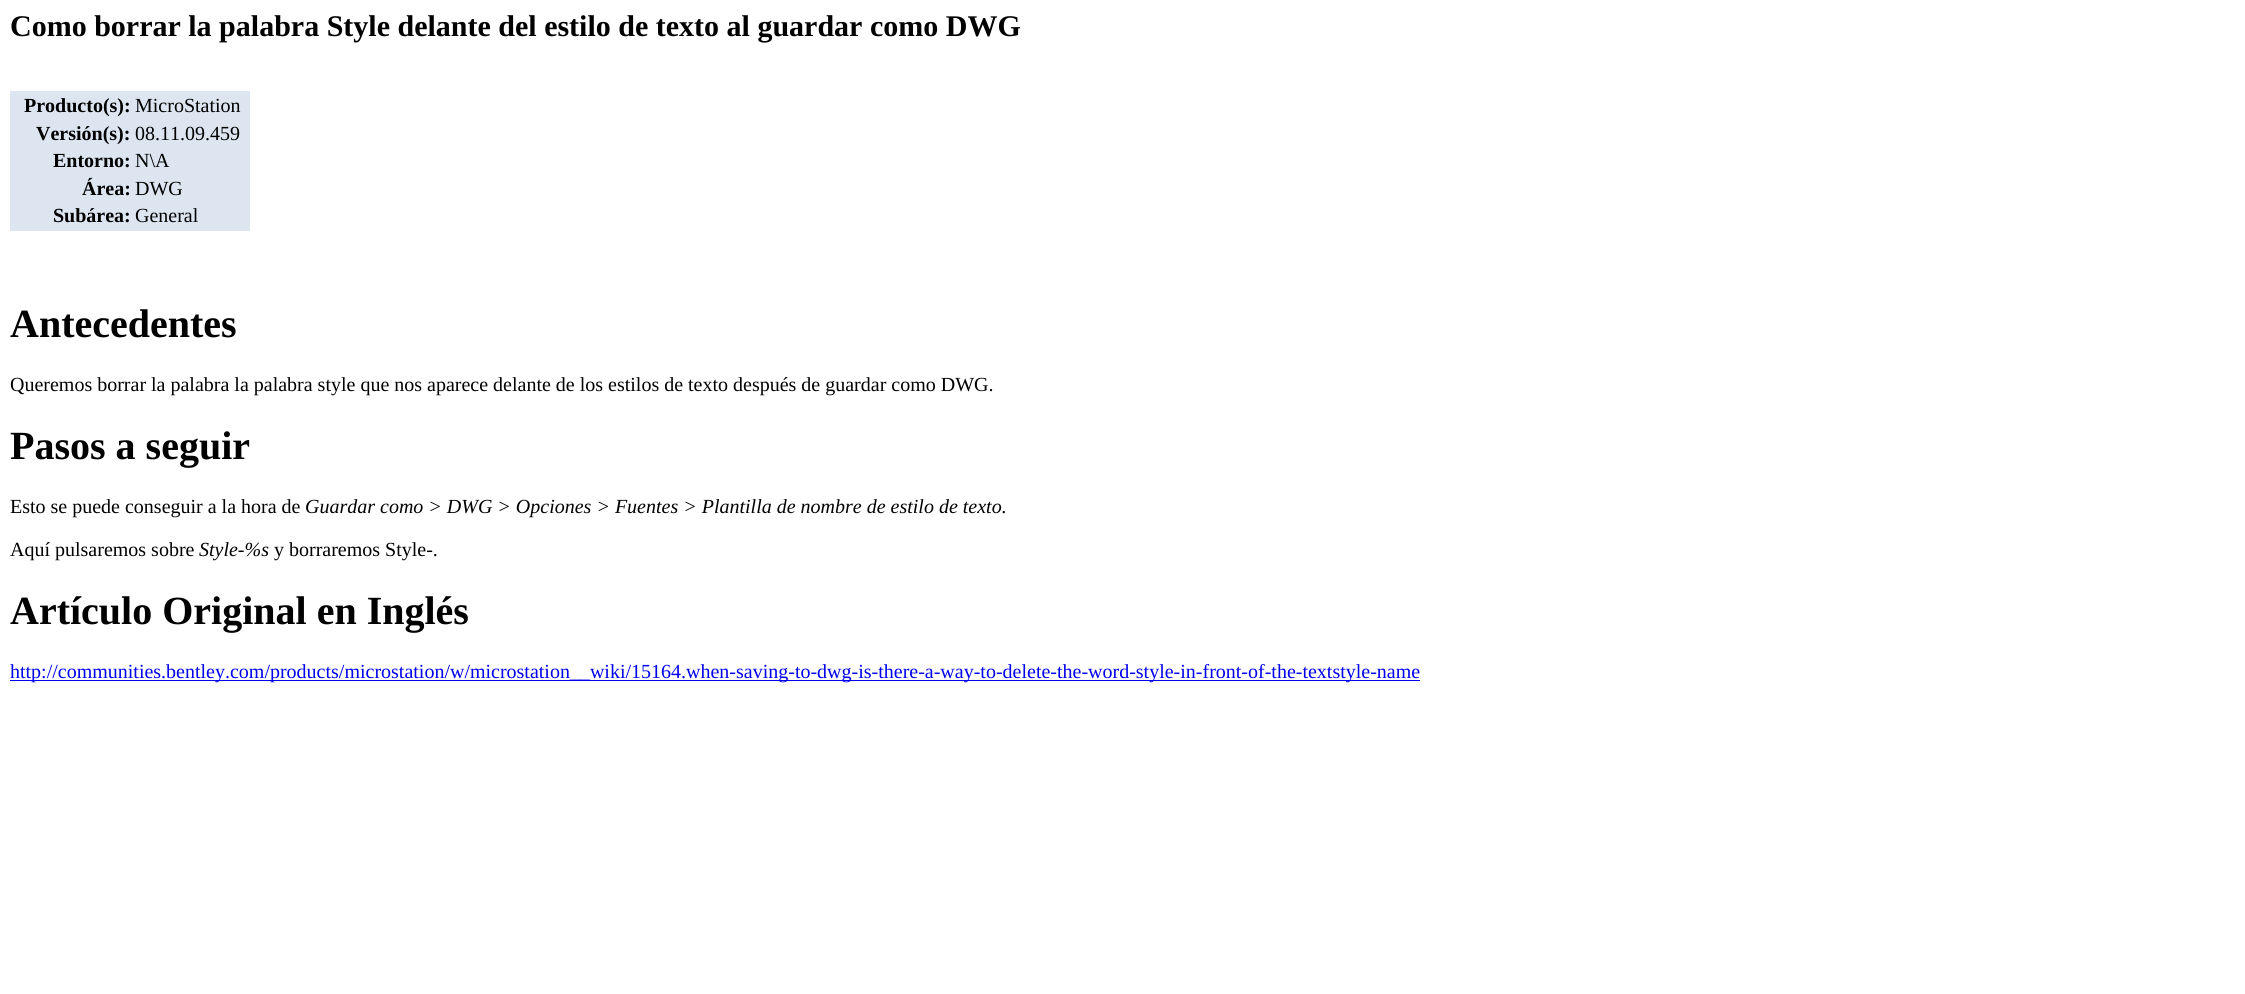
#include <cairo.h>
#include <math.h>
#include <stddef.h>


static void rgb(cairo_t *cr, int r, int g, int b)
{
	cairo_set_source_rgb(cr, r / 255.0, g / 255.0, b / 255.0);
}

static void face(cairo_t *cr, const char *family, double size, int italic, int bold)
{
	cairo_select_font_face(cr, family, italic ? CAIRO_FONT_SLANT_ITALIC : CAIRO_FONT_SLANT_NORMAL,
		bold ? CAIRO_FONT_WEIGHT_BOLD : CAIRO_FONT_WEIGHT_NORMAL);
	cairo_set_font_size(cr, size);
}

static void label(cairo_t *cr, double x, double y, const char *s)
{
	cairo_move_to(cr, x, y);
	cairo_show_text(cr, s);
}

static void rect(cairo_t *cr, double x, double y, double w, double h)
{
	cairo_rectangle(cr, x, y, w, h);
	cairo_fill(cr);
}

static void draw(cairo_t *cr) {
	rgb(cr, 255, 255, 255);
	cairo_paint(cr);
	face(cr, "Liberation Serif", 30, 0, 1);
	rgb(cr, 0, 0, 0);
	label(cr, 10, 36, "Como borrar la palabra Style delante del estilo de texto al guardar como DWG");
	rgb(cr, 220, 229, 240);
	rect(cr, 10, 91, 240, 140);
	face(cr, "Liberation Serif", 20, 0, 1);
	rgb(cr, 0, 0, 0);
	label(cr, 24, 112, "Producto(s):");
	face(cr, "Liberation Serif", 20, 0, 0);
	label(cr, 135, 112, "MicroStation");
	face(cr, "Liberation Serif", 20, 0, 1);
	label(cr, 36, 140, "Versión(s):");
	face(cr, "Liberation Serif", 20, 0, 0);
	label(cr, 135, 140, "08.11.09.459");
	face(cr, "Liberation Serif", 20, 0, 1);
	label(cr, 53, 167, "Entorno:");
	face(cr, "Liberation Serif", 20, 0, 0);
	label(cr, 135, 167, "N\\A");
	face(cr, "Liberation Serif", 20, 0, 1);
	label(cr, 82, 195, "Área:");
	face(cr, "Liberation Serif", 20, 0, 0);
	label(cr, 135, 195, "DWG");
	face(cr, "Liberation Serif", 20, 0, 1);
	label(cr, 53, 222, "Subárea:");
	face(cr, "Liberation Serif", 20, 0, 0);
	label(cr, 135, 222, "General");
	face(cr, "Liberation Serif", 40, 0, 1);
	label(cr, 10, 337, "Antecedentes");
	face(cr, "Liberation Serif", 20, 0, 0);
	label(cr, 10, 391, "Queremos borrar la palabra la palabra style que nos aparece delante de los estilos de texto después de guardar como DWG.");
	face(cr, "Liberation Serif", 40, 0, 1);
	label(cr, 10, 459, "Pasos a seguir");
	face(cr, "Liberation Serif", 20, 0, 0);
	label(cr, 10, 513, "Esto se puede conseguir a la hora de");
	face(cr, "Liberation Serif", 20, 1, 0);
	label(cr, 305, 513, "Guardar como > DWG > Opciones > Fuentes > Plantilla de nombre de estilo de texto.");
	face(cr, "Liberation Serif", 20, 0, 0);
	label(cr, 10, 556, "Aquí pulsaremos sobre");
	face(cr, "Liberation Serif", 20, 1, 0);
	label(cr, 199, 556, "Style-%s");
	face(cr, "Liberation Serif", 20, 0, 0);
	label(cr, 274, 556, "y borraremos Style-.");
	face(cr, "Liberation Serif", 40, 0, 1);
	label(cr, 10, 624, "Artículo Original en Inglés");
	rgb(cr, 0, 0, 238);
	rect(cr, 10, 680, 1410, 1);
	face(cr, "Liberation Serif", 20, 0, 0);
	label(cr, 10, 678, "http://communities.bentley.com/products/microstation/w/microstation__wiki/15164.when-saving-to-dwg-is-there-a-way-to-delete-the-word-style-in-front-of-the-textstyle-name");
}

int main(void) {
	cairo_surface_t *surface = cairo_image_surface_create(CAIRO_FORMAT_RGB24, 2245, 994);
	cairo_t *cr = cairo_create(surface);
	cairo_font_options_t *options = cairo_font_options_create();
	cairo_font_options_set_hint_metrics(options, CAIRO_HINT_METRICS_OFF);
	cairo_font_options_set_hint_style(options, CAIRO_HINT_STYLE_NONE);
	cairo_set_font_options(cr, options);
	cairo_set_miter_limit(cr, 4);
	draw(cr);
	cairo_surface_write_to_png(surface, "render.png");
	cairo_font_options_destroy(options);
	cairo_destroy(cr);
	cairo_surface_destroy(surface);
	return 0;
}
